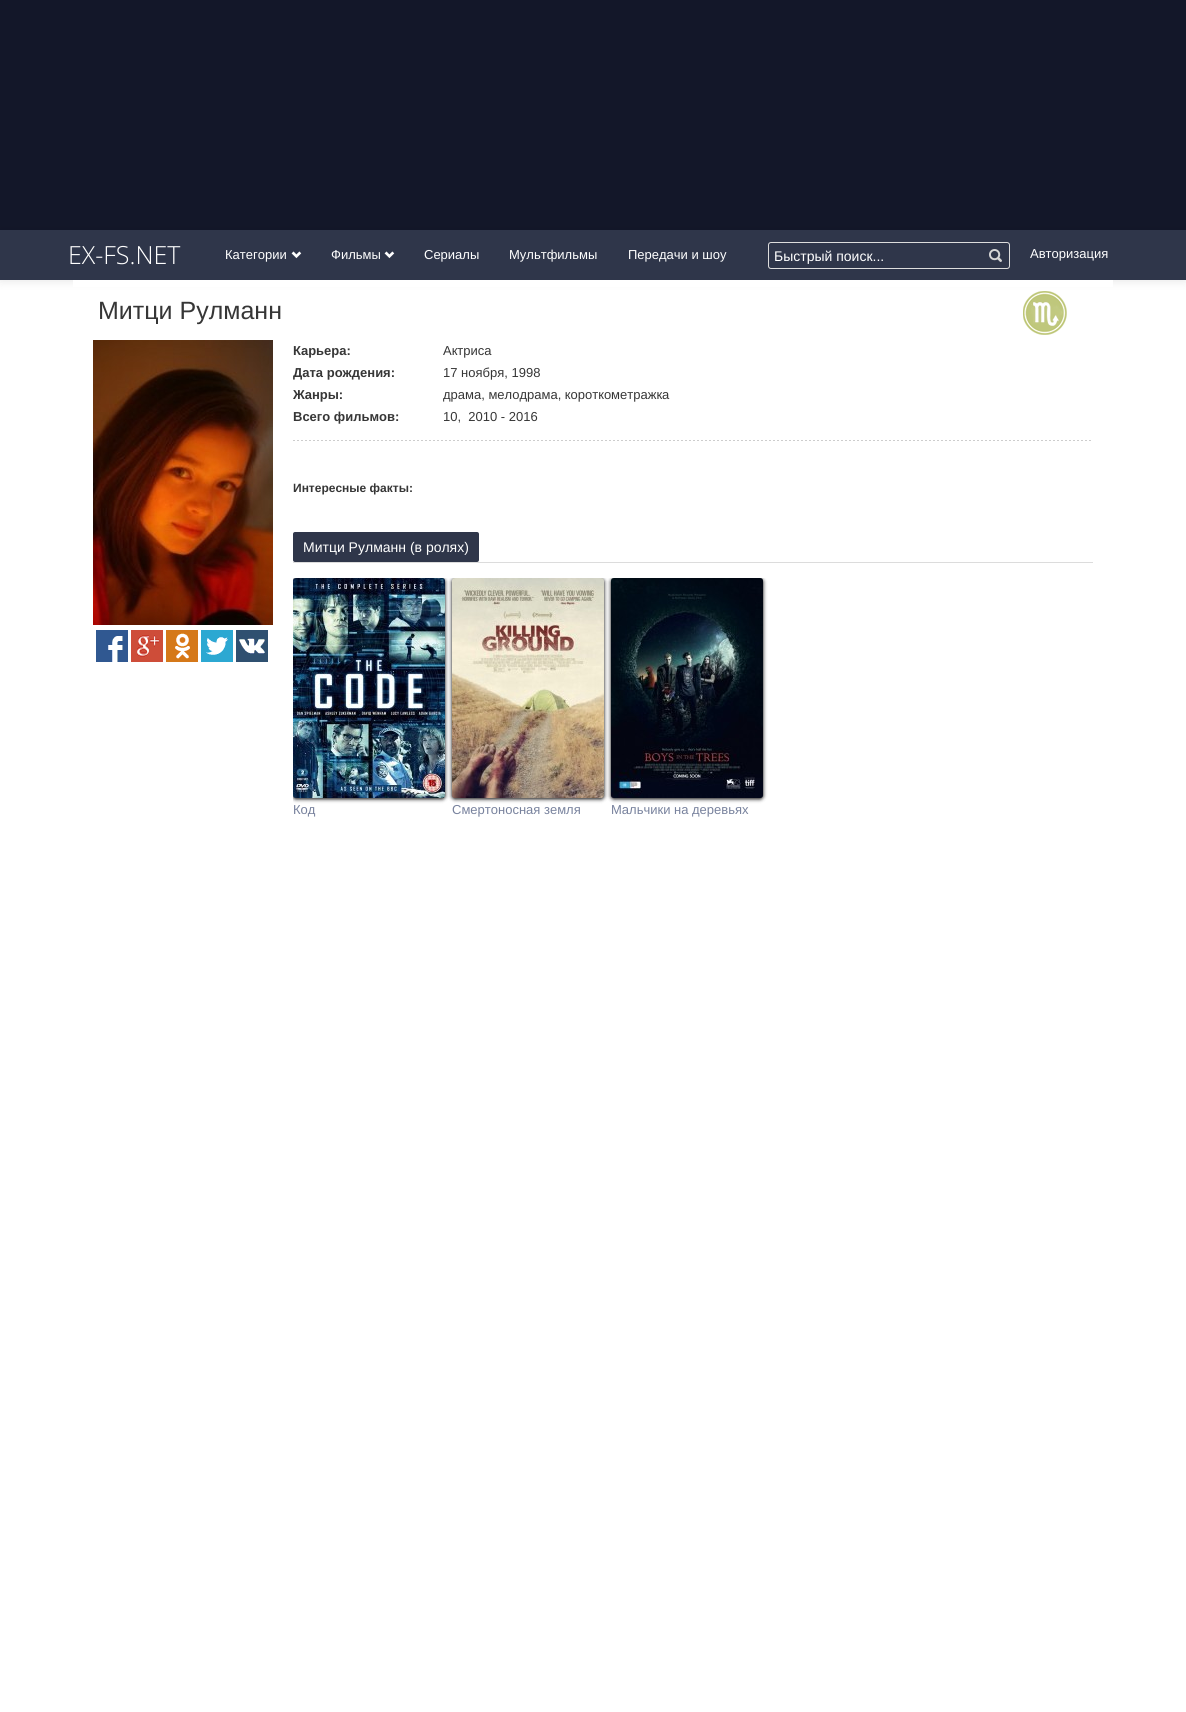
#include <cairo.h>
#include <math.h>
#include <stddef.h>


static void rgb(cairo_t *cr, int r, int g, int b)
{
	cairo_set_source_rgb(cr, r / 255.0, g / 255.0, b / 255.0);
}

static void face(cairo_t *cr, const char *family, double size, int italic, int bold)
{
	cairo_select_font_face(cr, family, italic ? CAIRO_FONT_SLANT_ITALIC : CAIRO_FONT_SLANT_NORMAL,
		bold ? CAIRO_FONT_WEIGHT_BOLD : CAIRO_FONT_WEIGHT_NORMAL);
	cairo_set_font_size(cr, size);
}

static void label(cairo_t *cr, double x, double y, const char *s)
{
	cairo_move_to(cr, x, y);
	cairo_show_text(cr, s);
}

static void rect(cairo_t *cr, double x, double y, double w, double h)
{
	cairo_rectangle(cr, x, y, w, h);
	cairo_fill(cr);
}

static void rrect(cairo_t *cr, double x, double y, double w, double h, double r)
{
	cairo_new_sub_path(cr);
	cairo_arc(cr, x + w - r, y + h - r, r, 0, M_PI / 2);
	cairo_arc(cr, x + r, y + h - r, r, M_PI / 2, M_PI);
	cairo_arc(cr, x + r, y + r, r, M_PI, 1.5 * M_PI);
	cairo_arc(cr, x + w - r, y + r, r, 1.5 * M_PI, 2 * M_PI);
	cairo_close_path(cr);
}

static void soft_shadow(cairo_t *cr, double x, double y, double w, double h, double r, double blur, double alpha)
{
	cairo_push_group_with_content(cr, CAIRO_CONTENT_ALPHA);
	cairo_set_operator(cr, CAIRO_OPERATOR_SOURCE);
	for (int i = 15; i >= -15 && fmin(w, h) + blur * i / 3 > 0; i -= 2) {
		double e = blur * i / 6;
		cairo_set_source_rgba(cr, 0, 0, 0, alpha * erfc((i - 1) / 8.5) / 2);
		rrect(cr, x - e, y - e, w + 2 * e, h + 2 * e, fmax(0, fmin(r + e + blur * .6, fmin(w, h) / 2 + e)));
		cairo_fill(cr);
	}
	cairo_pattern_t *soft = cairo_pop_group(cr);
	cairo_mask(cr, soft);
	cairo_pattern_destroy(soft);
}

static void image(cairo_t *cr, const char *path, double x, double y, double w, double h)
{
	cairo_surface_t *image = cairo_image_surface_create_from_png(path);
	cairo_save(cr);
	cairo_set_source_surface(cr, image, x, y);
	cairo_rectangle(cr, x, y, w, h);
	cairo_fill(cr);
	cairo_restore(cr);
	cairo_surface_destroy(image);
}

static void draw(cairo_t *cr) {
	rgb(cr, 19, 23, 41);
	cairo_paint(cr);
	rgb(cr, 255, 255, 255);
	rect(cr, 0, 280, 1186, 1432);
	rgb(cr, 0, 0, 0);
	soft_shadow(cr, 0, 231, 1186, 50, 0, 5, 0.1);
	rgb(cr, 47, 54, 74);
	rect(cr, 0, 230, 1186, 50);
	face(cr, "Open Sans Light", 25, 0, 0);
	rgb(cr, 255, 255, 255);
	label(cr, 68, 264, "EX-FS.NET");
	face(cr, "Liberation Sans", 13, 0, 0);
	label(cr, 225, 259, "Категории");
	image(cr, "image0.png", 291, 251, 11, 8);
	label(cr, 331, 259, "Фильмы");
	image(cr, "image0.png", 384, 251, 11, 8);
	label(cr, 424, 259, "Сериалы");
	label(cr, 509, 259, "Мультфильмы");
	label(cr, 628, 259, "Передачи и шоу");
	rrect(cr, 768.5, 242.5, 241, 26, 2.5);
	rgb(cr, 221, 221, 221);
	cairo_set_line_width(cr, 1);
	cairo_stroke(cr);
	face(cr, "Liberation Sans", 14, 0, 0);
	rgb(cr, 255, 255, 255);
	label(cr, 774, 261, "Быстрый поиск...");
	image(cr, "image1.png", 989, 249, 13, 13);
	face(cr, "Liberation Sans", 13, 0, 0);
	label(cr, 1030, 258, "Авторизация");
	rect(cr, 73, 280, 1040, 7);
	face(cr, "Liberation Sans", 25, 0, 0);
	rgb(cr, 54, 54, 54);
	label(cr, 98, 319, "Митци Рулманн");
	image(cr, "image2.png", 1023, 291, 44, 44);
	image(cr, "image3.png", 93, 340, 180, 285);
	image(cr, "image4.png", 96, 630, 32, 32);
	image(cr, "image5.png", 131, 630, 32, 32);
	image(cr, "image6.png", 166, 630, 32, 32);
	image(cr, "image7.png", 201, 630, 32, 32);
	image(cr, "image8.png", 236, 630, 32, 32);
	face(cr, "Liberation Sans", 13, 0, 1);
	label(cr, 293, 355, "Карьера:");
	face(cr, "Liberation Sans", 13, 0, 0);
	label(cr, 443, 355, "Актриса");
	face(cr, "Liberation Sans", 13, 0, 1);
	label(cr, 293, 377, "Дата рождения:");
	face(cr, "Liberation Sans", 13, 0, 0);
	label(cr, 443, 377, "17 ноября, 1998");
	face(cr, "Liberation Sans", 13, 0, 1);
	label(cr, 293, 399, "Жанры:");
	face(cr, "Liberation Sans", 13, 0, 0);
	label(cr, 443, 399, "драма, мелодрама, короткометражка");
	face(cr, "Liberation Sans", 13, 0, 1);
	label(cr, 293, 421, "Всего фильмов:");
	face(cr, "Liberation Sans", 13, 0, 0);
	label(cr, 443, 421, "10,  2010 - 2016");
	image(cr, "image9.png", 293, 440, 798, 1);
	face(cr, "Liberation Sans", 12, 0, 1);
	label(cr, 293, 492, "Интересные факты:");
	rgb(cr, 220, 220, 220);
	rect(cr, 293, 562, 800, 1);
	rgb(cr, 47, 54, 74);
	rrect(cr, 293, 532, 186, 30, 2);
	cairo_fill(cr);
	face(cr, "Liberation Sans", 14, 0, 0);
	rgb(cr, 255, 255, 255);
	label(cr, 303, 552, "Митци Рулманн (в ролях)");
	cairo_save(cr);
	cairo_rectangle(cr, 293, 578, 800, 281);
	cairo_clip(cr);
	rgb(cr, 0, 0, 0);
	soft_shadow(cr, 293, 579, 152, 220, 3, 2, 1);
	cairo_restore(cr);
	image(cr, "image10.png", 293, 578, 152, 220);
	face(cr, "Liberation Sans", 13, 0, 0);
	rgb(cr, 120, 130, 157);
	label(cr, 293, 814, "Код");
	cairo_save(cr);
	cairo_rectangle(cr, 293, 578, 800, 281);
	cairo_clip(cr);
	rgb(cr, 0, 0, 0);
	soft_shadow(cr, 452, 579, 152, 220, 3, 2, 1);
	cairo_restore(cr);
	image(cr, "image11.png", 452, 578, 152, 220);
	label(cr, 452, 814, "Смертоносная земля");
	cairo_save(cr);
	cairo_rectangle(cr, 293, 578, 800, 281);
	cairo_clip(cr);
	rgb(cr, 0, 0, 0);
	soft_shadow(cr, 611, 579, 152, 220, 3, 2, 1);
	cairo_restore(cr);
	image(cr, "image12.png", 611, 578, 152, 220);
	label(cr, 611, 814, "Мальчики на деревьях");
}

int main(void) {
	cairo_surface_t *surface = cairo_image_surface_create(CAIRO_FORMAT_RGB24, 1186, 1712);
	cairo_t *cr = cairo_create(surface);
	cairo_font_options_t *options = cairo_font_options_create();
	cairo_font_options_set_hint_metrics(options, CAIRO_HINT_METRICS_OFF);
	cairo_font_options_set_hint_style(options, CAIRO_HINT_STYLE_NONE);
	cairo_set_font_options(cr, options);
	cairo_set_miter_limit(cr, 4);
	draw(cr);
	cairo_surface_write_to_png(surface, "render.png");
	cairo_font_options_destroy(options);
	cairo_destroy(cr);
	cairo_surface_destroy(surface);
	return 0;
}
